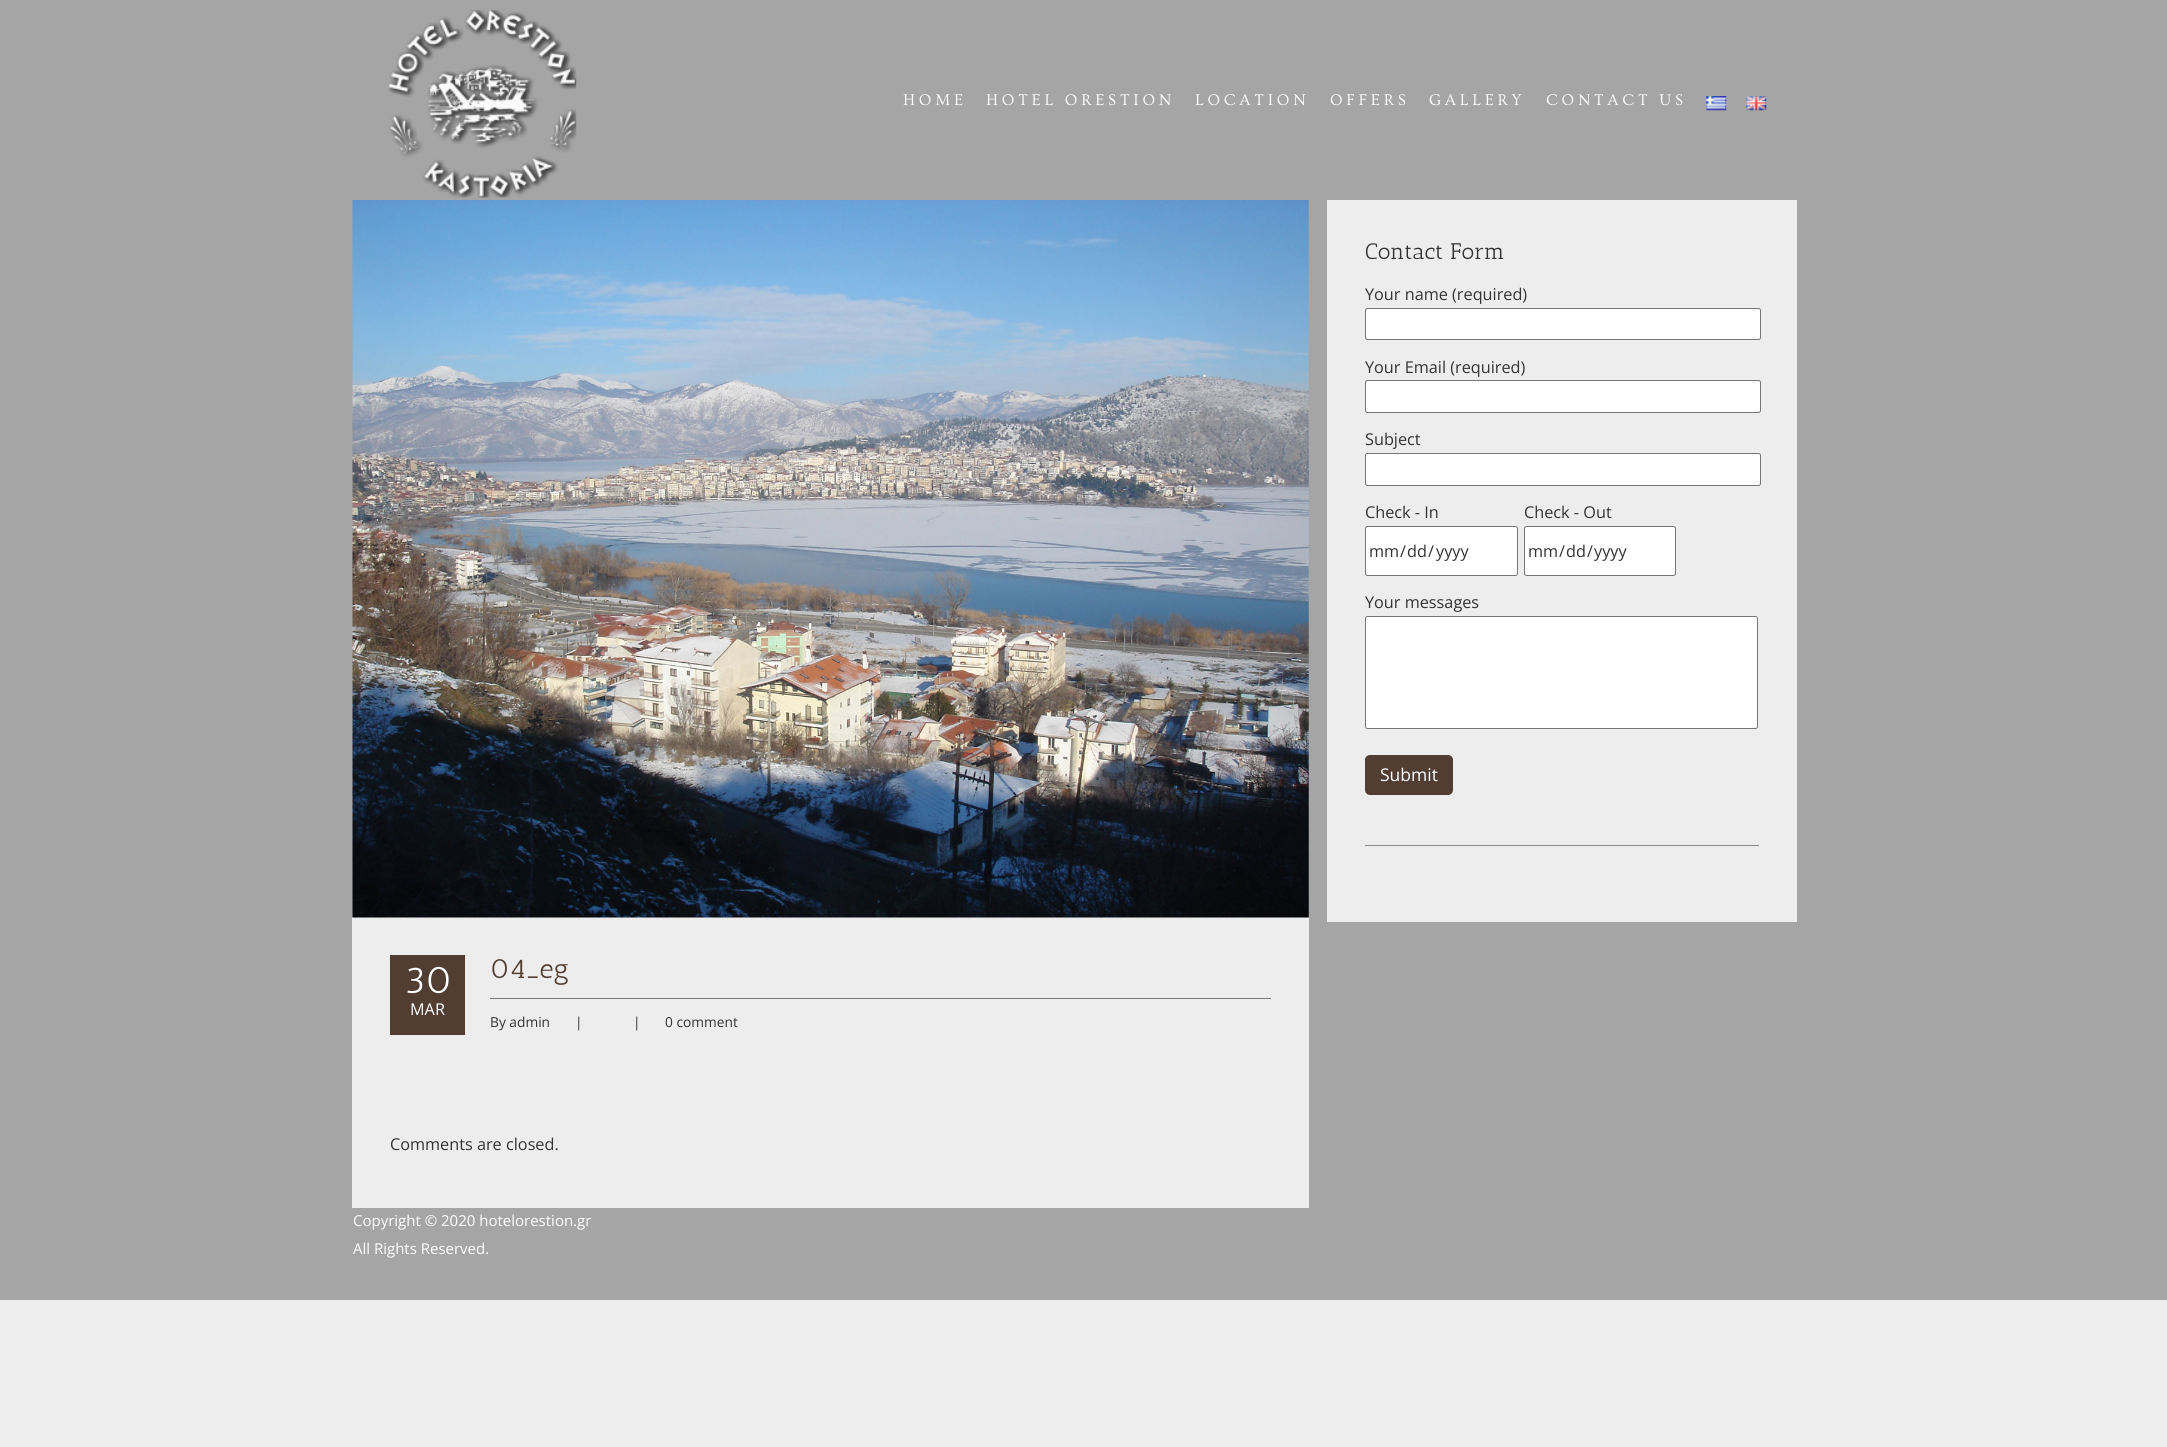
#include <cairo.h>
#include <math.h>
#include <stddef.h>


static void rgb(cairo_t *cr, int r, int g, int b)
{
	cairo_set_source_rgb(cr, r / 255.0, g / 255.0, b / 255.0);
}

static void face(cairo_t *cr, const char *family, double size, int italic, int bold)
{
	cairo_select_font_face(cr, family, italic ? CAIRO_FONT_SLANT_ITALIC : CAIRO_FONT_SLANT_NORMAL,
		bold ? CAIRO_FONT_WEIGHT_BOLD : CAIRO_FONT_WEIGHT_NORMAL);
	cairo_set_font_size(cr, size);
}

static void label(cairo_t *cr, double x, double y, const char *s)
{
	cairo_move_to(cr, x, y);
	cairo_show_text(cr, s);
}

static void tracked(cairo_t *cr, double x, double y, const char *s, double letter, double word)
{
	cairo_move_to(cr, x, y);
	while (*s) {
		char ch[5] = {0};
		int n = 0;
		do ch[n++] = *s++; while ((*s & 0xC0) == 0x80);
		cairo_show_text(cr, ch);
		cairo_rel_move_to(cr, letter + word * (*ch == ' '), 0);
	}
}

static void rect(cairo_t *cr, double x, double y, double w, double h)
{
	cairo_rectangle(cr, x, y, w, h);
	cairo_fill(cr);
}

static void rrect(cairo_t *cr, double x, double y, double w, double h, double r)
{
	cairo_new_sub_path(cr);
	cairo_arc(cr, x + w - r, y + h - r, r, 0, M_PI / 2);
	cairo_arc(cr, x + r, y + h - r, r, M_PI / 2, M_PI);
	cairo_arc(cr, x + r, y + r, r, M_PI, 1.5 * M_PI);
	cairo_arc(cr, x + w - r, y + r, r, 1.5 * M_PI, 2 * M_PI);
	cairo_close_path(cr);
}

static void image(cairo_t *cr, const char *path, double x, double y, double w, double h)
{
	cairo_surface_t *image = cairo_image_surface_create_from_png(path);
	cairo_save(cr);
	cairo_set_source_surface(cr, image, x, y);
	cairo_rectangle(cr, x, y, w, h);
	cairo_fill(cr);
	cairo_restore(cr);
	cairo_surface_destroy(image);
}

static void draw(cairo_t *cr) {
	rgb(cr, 238, 238, 238);
	cairo_paint(cr);
	rgb(cr, 165, 165, 165);
	rect(cr, 0, 0, 2167, 1300);
	image(cr, "image0.png", 388, 10, 189, 188);
	face(cr, "Ovo", 16.25, 0, 0);
	rgb(cr, 255, 255, 255);
	tracked(cr, 903, 105, "HOME", 3.75, 0);
	tracked(cr, 986, 105, "HOTEL ORESTION", 3.75, 0);
	tracked(cr, 1195, 105, "LOCATION", 3.75, 0);
	tracked(cr, 1330, 105, "OFFERS", 3.75, 0);
	tracked(cr, 1429, 105, "GALLERY", 3.75, 0);
	tracked(cr, 1546, 105, "CONTACT US", 3.75, 0);
	image(cr, "image1.png", 1706, 96, 21, 15);
	image(cr, "image2.png", 1746, 96, 21, 15);
	rgb(cr, 237, 237, 237);
	rect(cr, 1327, 200, 470, 722);
	rgb(cr, 136, 136, 136);
	rect(cr, 1365, 845, 394, 1);
	face(cr, "Antic Slab", 22.5, 0, 0);
	rgb(cr, 51, 51, 51);
	label(cr, 1365, 259, "Contact Form");
	face(cr, "Open Sans", 16.25, 0, 0);
	label(cr, 1365, 300, "Your name (required)");
	rgb(cr, 255, 255, 255);
	rrect(cr, 1365.5, 308.5, 395, 31, 2);
	cairo_fill_preserve(cr);
	rgb(cr, 118, 118, 118);
	cairo_set_line_width(cr, 1);
	cairo_stroke(cr);
	rgb(cr, 51, 51, 51);
	label(cr, 1365, 373, "Your Email (required)");
	rgb(cr, 255, 255, 255);
	rrect(cr, 1365.5, 380.5, 395, 32, 2);
	cairo_fill_preserve(cr);
	rgb(cr, 118, 118, 118);
	cairo_stroke(cr);
	rgb(cr, 51, 51, 51);
	label(cr, 1365, 445, "Subject");
	rgb(cr, 255, 255, 255);
	rrect(cr, 1365.5, 453.5, 395, 32, 2);
	cairo_fill_preserve(cr);
	rgb(cr, 118, 118, 118);
	cairo_stroke(cr);
	rgb(cr, 51, 51, 51);
	label(cr, 1365, 518, "Check - In");
	rgb(cr, 255, 255, 255);
	rrect(cr, 1365.5, 526.5, 152, 49, 2);
	cairo_fill_preserve(cr);
	rgb(cr, 118, 118, 118);
	cairo_stroke(cr);
	rgb(cr, 51, 51, 51);
	label(cr, 1369, 557, "mm");
	label(cr, 1400, 557, "/");
	label(cr, 1407, 557, "dd");
	label(cr, 1428, 557, "/");
	label(cr, 1436, 557, "yyyy");
	label(cr, 1524, 518, "Check - Out");
	rgb(cr, 255, 255, 255);
	rrect(cr, 1524.5, 526.5, 151, 49, 2);
	cairo_fill_preserve(cr);
	rgb(cr, 118, 118, 118);
	cairo_stroke(cr);
	rgb(cr, 51, 51, 51);
	label(cr, 1528, 557, "mm");
	label(cr, 1559, 557, "/");
	label(cr, 1566, 557, "dd");
	label(cr, 1587, 557, "/");
	label(cr, 1594, 557, "yyyy");
	label(cr, 1365, 608, "Your messages");
	rgb(cr, 255, 255, 255);
	rrect(cr, 1365.5, 616.5, 392, 112, 2);
	cairo_fill_preserve(cr);
	rgb(cr, 118, 118, 118);
	cairo_stroke(cr);
	rgb(cr, 81, 61, 50);
	rrect(cr, 1365, 755, 88, 40, 5);
	cairo_fill(cr);
	face(cr, "Open Sans", 17.5, 0, 0);
	rgb(cr, 255, 255, 255);
	label(cr, 1380, 781, "Submit");
	rgb(cr, 237, 237, 237);
	rect(cr, 352, 917, 957, 291);
	image(cr, "image3.png", 352, 200, 957, 718);
	rgb(cr, 81, 61, 50);
	rect(cr, 390, 955, 75, 80);
	face(cr, "Antic Slab", 38, 0, 0);
	rgb(cr, 255, 255, 255);
	label(cr, 404, 993, "30");
	face(cr, "Open Sans", 16.25, 0, 0);
	label(cr, 410, 1015, "MAR");
	face(cr, "Antic Slab", 27.5, 0, 0);
	rgb(cr, 81, 61, 50);
	label(cr, 490, 978, "04_eg");
	rgb(cr, 119, 119, 119);
	rect(cr, 490, 998, 781, 1);
	face(cr, "Open Sans", 13.75, 0, 0);
	rgb(cr, 51, 51, 51);
	label(cr, 490, 1027, "By admin");
	label(cr, 575, 1027, "|");
	label(cr, 633, 1027, "|");
	label(cr, 665, 1027, "0 comment");
	face(cr, "Open Sans", 16.25, 0, 0);
	label(cr, 390, 1150, "Comments are closed.");
	face(cr, "Open Sans", 15, 0, 0);
	rgb(cr, 255, 255, 255);
	label(cr, 353, 1226, "Copyright © 2020 hotelorestion.gr");
	label(cr, 353, 1254, "All Rights Reserved.");
}

int main(void) {
	cairo_surface_t *surface = cairo_image_surface_create(CAIRO_FORMAT_RGB24, 2167, 1447);
	cairo_t *cr = cairo_create(surface);
	cairo_font_options_t *options = cairo_font_options_create();
	cairo_font_options_set_hint_metrics(options, CAIRO_HINT_METRICS_OFF);
	cairo_font_options_set_hint_style(options, CAIRO_HINT_STYLE_NONE);
	cairo_set_font_options(cr, options);
	cairo_set_miter_limit(cr, 4);
	draw(cr);
	cairo_surface_write_to_png(surface, "render.png");
	cairo_font_options_destroy(options);
	cairo_destroy(cr);
	cairo_surface_destroy(surface);
	return 0;
}
